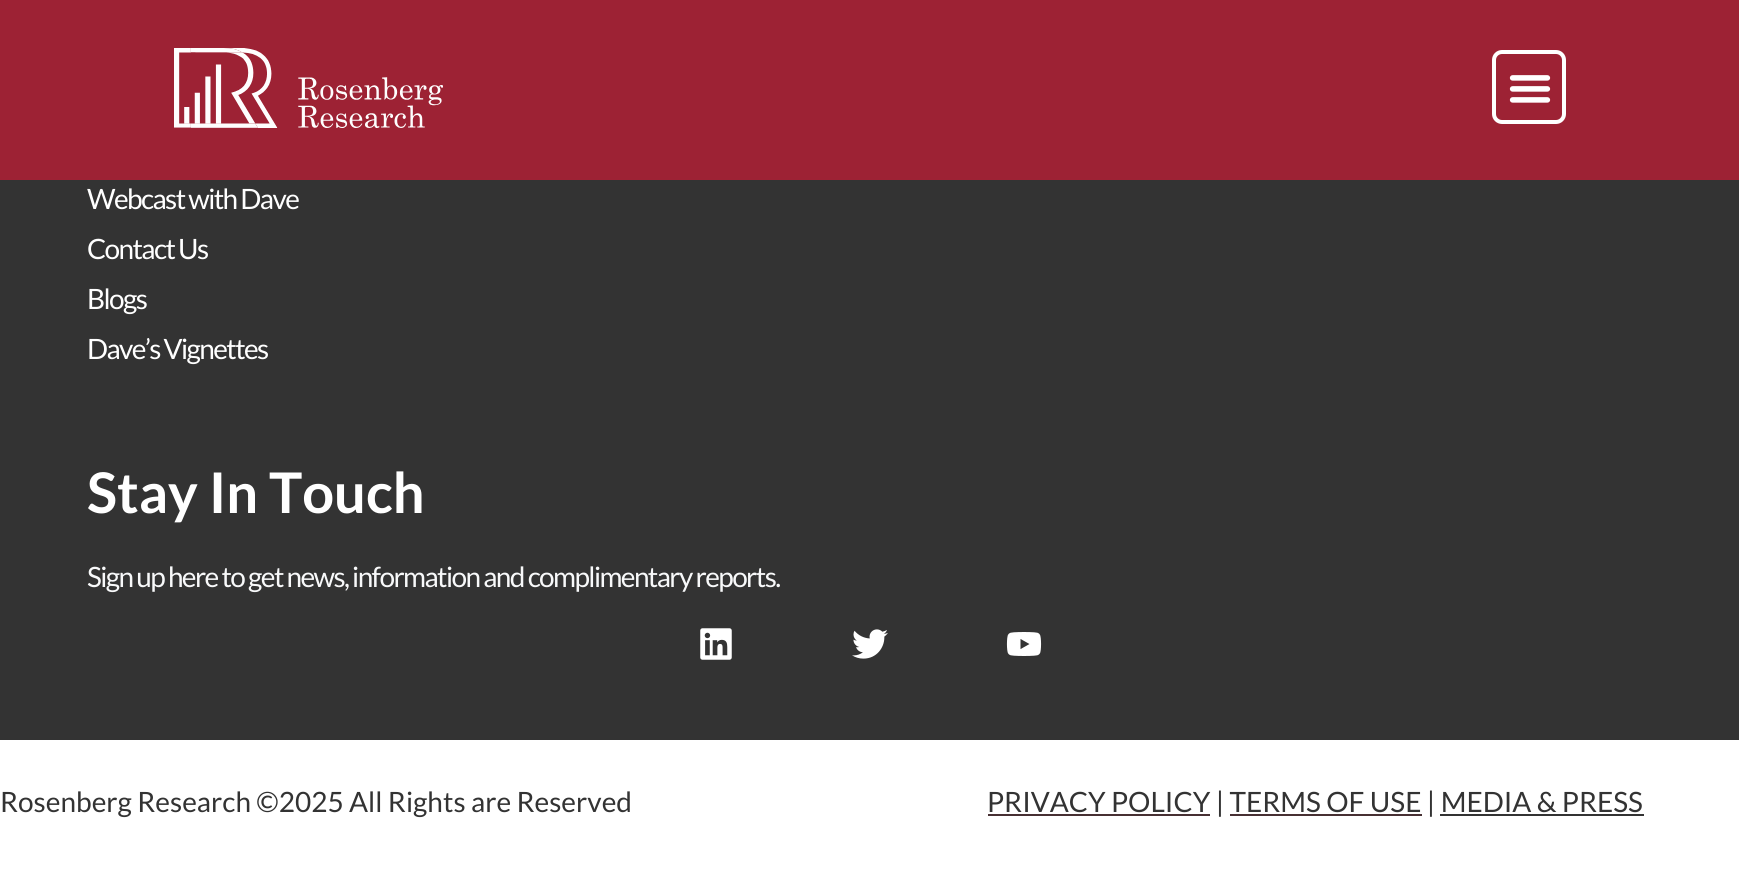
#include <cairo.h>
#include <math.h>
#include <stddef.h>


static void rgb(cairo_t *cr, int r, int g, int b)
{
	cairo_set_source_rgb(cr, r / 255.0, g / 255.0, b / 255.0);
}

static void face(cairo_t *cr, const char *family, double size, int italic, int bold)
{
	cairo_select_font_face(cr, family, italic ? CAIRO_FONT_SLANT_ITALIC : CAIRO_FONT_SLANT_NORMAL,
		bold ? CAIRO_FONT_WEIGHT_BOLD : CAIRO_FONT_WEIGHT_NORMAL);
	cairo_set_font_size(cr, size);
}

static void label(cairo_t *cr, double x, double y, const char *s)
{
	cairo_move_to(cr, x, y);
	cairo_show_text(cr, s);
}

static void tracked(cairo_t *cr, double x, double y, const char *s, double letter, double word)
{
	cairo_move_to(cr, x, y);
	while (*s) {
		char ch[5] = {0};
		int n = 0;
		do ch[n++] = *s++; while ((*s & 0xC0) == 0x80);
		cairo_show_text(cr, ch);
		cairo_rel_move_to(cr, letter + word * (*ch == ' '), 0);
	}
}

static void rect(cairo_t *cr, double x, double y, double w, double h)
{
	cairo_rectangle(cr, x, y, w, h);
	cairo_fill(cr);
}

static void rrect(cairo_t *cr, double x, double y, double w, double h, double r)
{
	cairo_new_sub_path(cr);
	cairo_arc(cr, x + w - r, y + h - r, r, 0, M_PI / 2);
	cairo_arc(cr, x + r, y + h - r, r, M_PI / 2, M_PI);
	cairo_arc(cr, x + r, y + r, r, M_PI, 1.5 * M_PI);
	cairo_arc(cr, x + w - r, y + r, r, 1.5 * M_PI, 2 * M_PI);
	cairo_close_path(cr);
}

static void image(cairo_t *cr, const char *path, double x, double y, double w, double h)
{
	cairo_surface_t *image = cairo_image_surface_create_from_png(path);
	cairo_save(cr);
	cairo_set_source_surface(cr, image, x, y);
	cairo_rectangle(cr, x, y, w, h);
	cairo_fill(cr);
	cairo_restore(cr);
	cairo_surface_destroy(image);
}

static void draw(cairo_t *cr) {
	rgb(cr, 255, 255, 255);
	cairo_paint(cr);
	rgb(cr, 157, 34, 52);
	rect(cr, 0, 0, 1739, 180);
	image(cr, "image0.png", 174, 48, 269, 80);
	rrect(cr, 1494, 52, 70, 70, 8);
	rgb(cr, 255, 255, 255);
	cairo_set_line_width(cr, 4);
	cairo_stroke(cr);
	image(cr, "image1.png", 1509, 75, 42, 28);
	rgb(cr, 51, 51, 51);
	rect(cr, 0, 180, 1739, 560);
	face(cr, "Lato", 28, 0, 0);
	rgb(cr, 255, 255, 255);
	tracked(cr, 87, 209, "Webcast with Dave", -1.6, 0);
	tracked(cr, 87, 259, "Contact Us", -1.6, 0);
	tracked(cr, 87, 309, "Blogs", -1.6, 0);
	tracked(cr, 87, 359, "Dave’s Vignettes", -1.6, 0);
	face(cr, "Lato", 56, 0, 1);
	label(cr, 87, 513, "Stay In Touch");
	face(cr, "Lato", 28, 0, 0);
	rgb(cr, 248, 249, 250);
	tracked(cr, 87, 587, "Sign up here to get news, information and complimentary reports.", -1.6, 0);
	image(cr, "image2.png", 700, 628, 32, 32);
	image(cr, "image3.png", 852, 629, 36, 30);
	image(cr, "image4.png", 1006, 632, 36, 24);
	rgb(cr, 51, 51, 51);
	label(cr, 0, 812, "Rosenberg Research ©2025 All Rights are Reserved");
	rgb(cr, 71, 48, 51);
	rect(cr, 988, 814, 222, 2);
	rgb(cr, 51, 51, 51);
	label(cr, 987, 812, "PRIVACY POLICY | TERMS OF USE | MEDIA & PRESS");
	rgb(cr, 71, 48, 51);
	rect(cr, 1230, 814, 192, 2);
	rgb(cr, 51, 51, 51);
	rect(cr, 1440, 814, 204, 2);
}

int main(void) {
	cairo_surface_t *surface = cairo_image_surface_create(CAIRO_FORMAT_RGB24, 1739, 869);
	cairo_t *cr = cairo_create(surface);
	cairo_font_options_t *options = cairo_font_options_create();
	cairo_font_options_set_hint_metrics(options, CAIRO_HINT_METRICS_OFF);
	cairo_font_options_set_hint_style(options, CAIRO_HINT_STYLE_NONE);
	cairo_set_font_options(cr, options);
	cairo_set_miter_limit(cr, 4);
	draw(cr);
	cairo_surface_write_to_png(surface, "render.png");
	cairo_font_options_destroy(options);
	cairo_destroy(cr);
	cairo_surface_destroy(surface);
	return 0;
}
